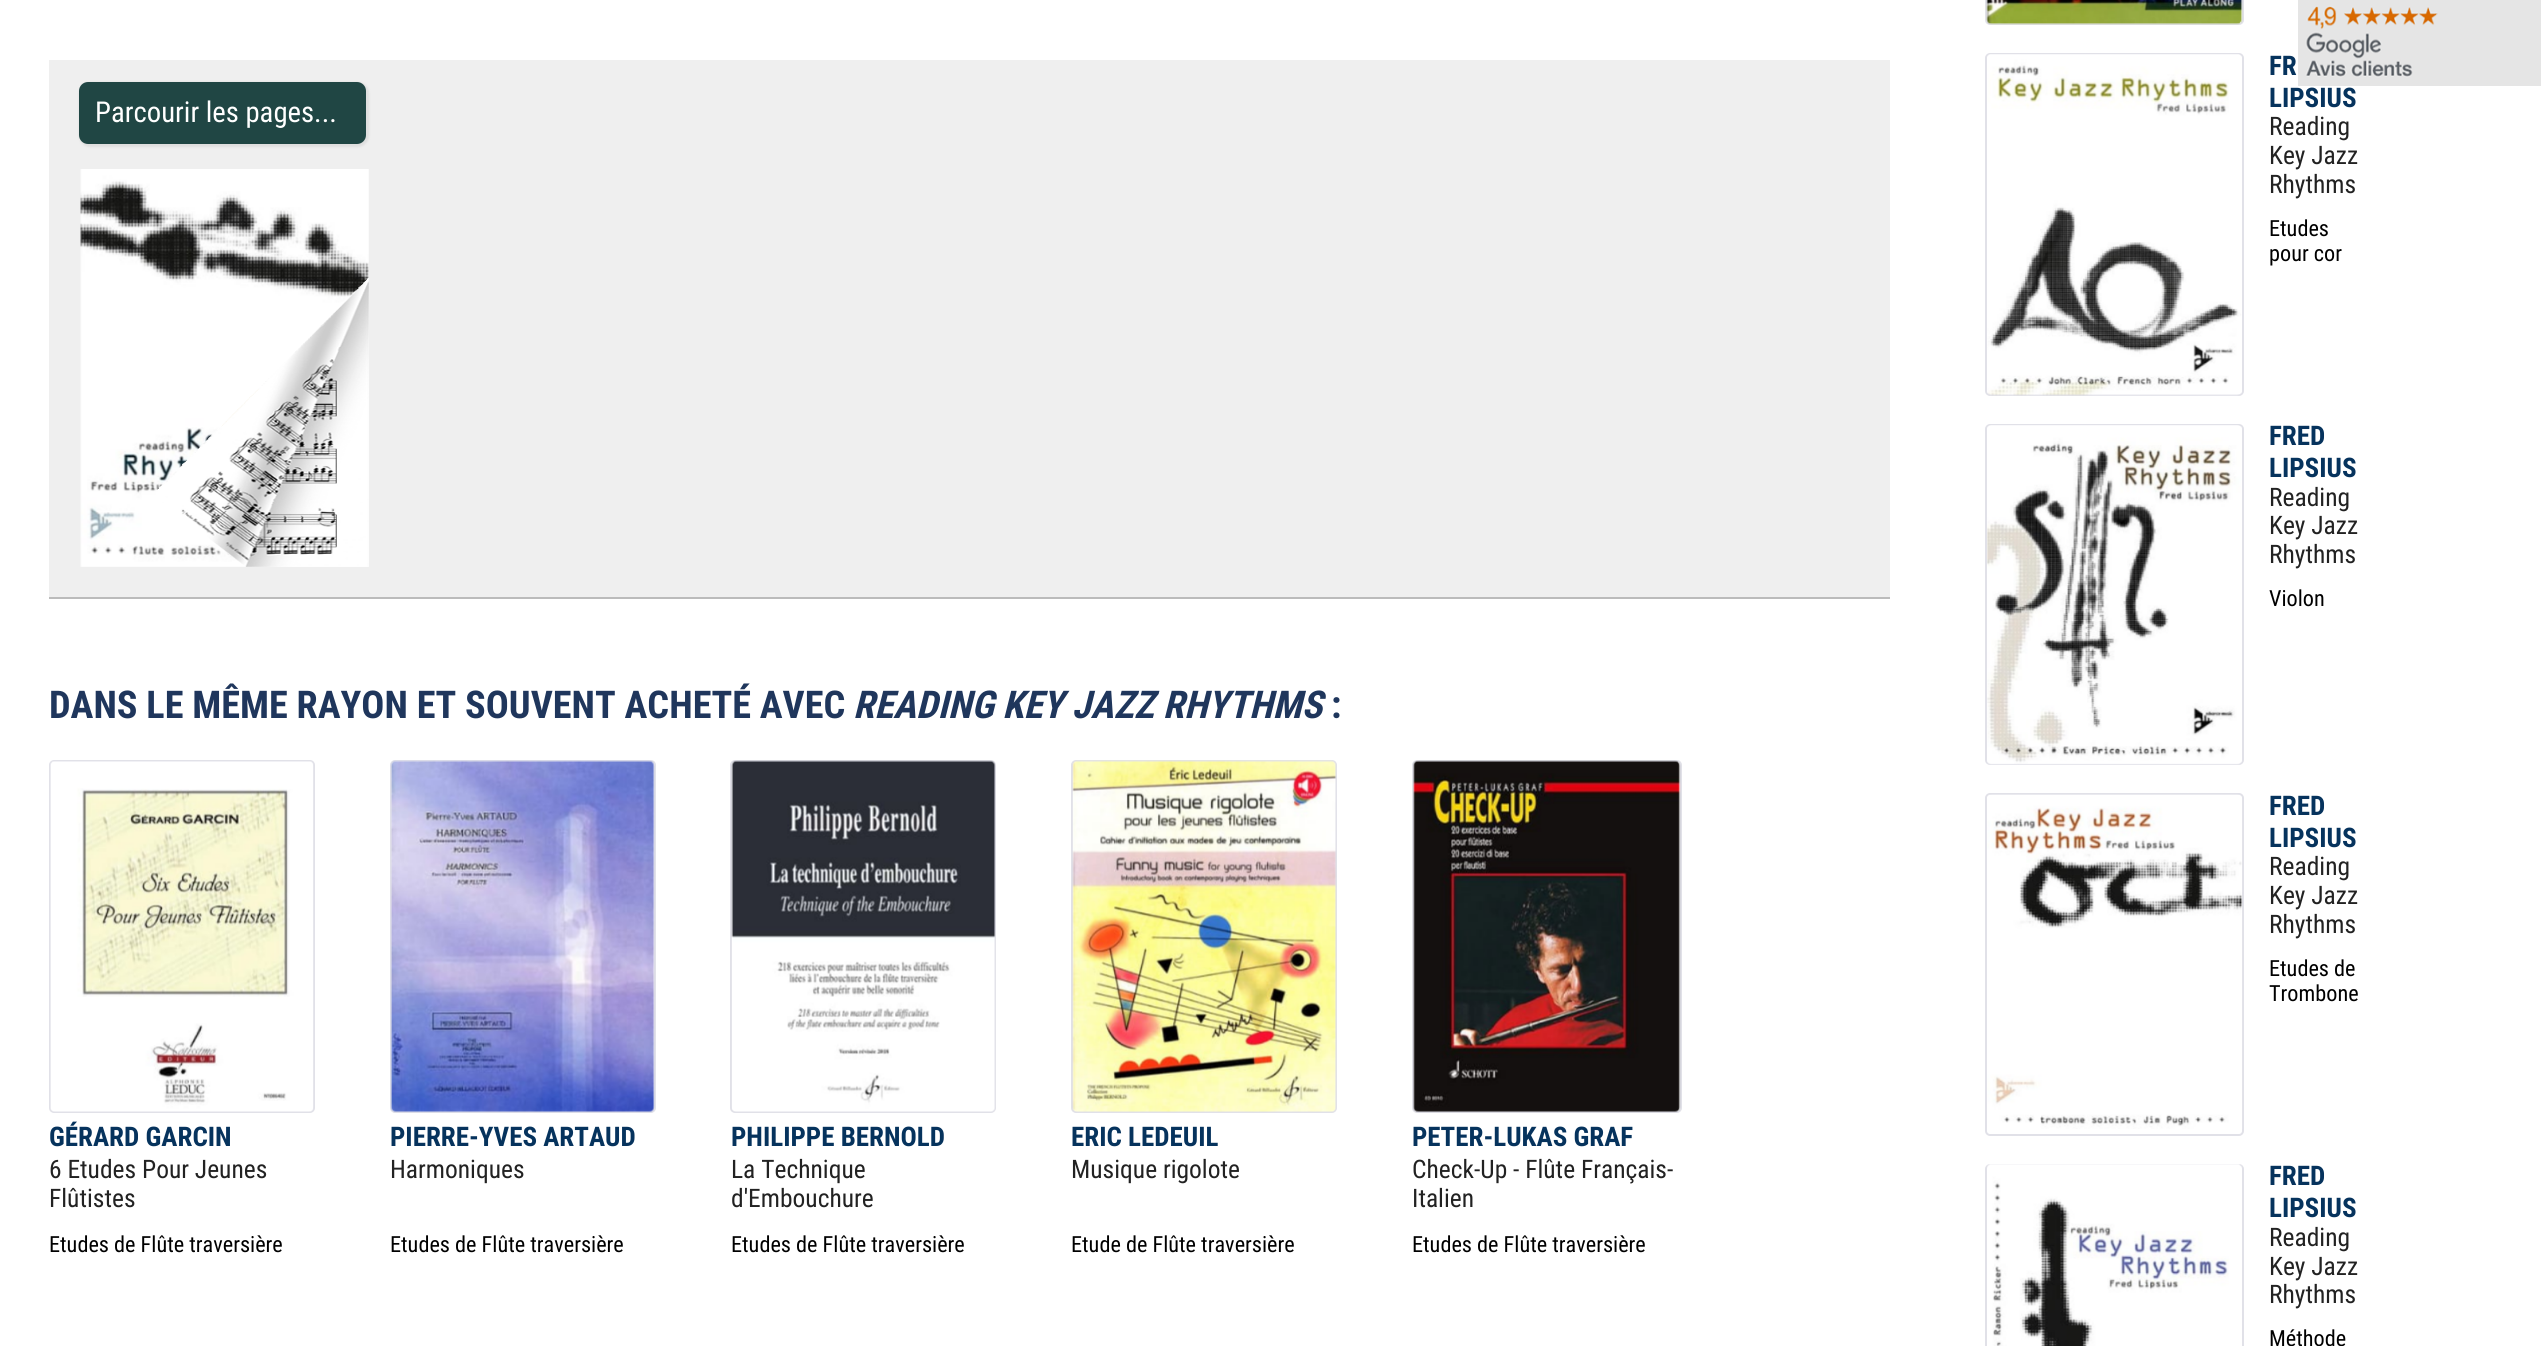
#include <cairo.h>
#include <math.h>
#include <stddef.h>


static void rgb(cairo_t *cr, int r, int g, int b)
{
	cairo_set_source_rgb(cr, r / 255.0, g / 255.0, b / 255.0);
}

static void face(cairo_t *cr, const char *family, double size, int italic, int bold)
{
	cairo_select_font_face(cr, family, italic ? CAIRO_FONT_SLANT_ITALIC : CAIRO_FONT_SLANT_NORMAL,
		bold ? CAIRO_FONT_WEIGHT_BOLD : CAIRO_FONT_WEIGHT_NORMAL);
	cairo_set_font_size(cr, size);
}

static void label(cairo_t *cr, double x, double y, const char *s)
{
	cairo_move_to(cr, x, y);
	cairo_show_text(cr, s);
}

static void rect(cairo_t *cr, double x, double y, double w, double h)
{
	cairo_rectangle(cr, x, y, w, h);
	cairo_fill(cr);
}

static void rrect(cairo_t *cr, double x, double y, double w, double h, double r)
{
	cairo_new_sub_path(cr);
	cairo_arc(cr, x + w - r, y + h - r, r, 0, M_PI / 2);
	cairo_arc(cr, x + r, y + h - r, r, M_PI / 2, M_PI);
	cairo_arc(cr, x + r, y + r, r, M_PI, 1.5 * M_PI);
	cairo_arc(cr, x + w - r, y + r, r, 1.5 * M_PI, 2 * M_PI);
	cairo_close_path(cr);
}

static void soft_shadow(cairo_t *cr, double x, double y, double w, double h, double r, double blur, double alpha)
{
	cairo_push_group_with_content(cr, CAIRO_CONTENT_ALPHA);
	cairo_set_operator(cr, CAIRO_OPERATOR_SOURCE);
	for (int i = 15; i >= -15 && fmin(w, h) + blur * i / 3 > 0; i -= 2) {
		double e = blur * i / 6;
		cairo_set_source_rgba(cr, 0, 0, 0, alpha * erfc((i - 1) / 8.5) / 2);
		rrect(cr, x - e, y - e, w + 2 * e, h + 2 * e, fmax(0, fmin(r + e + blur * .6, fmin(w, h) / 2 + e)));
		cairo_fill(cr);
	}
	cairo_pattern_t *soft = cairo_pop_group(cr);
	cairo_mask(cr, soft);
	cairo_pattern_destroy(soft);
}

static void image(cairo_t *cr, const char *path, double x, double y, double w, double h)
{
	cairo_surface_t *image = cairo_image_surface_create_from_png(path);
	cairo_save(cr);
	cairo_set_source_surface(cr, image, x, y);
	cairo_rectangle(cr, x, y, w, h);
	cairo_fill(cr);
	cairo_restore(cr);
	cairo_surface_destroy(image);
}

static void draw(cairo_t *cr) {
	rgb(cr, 255, 255, 255);
	cairo_paint(cr);
	image(cr, "image0.png", 2298, 0, 243, 86);
	rgb(cr, 239, 239, 239);
	rect(cr, 49, 60, 1841, 537);
	rgb(cr, 187, 187, 187);
	rect(cr, 49, 597, 1841, 2);
	rgb(cr, 223, 223, 223);
	soft_shadow(cr, 79, 82, 290, 65, 11, 1, 1);
	rgb(cr, 32, 70, 68);
	rrect(cr, 79, 82, 287, 62, 9);
	cairo_fill(cr);
	face(cr, "Roboto Condensed", 28.75, 0, 0);
	rgb(cr, 255, 255, 255);
	label(cr, 95, 122, "Parcourir les pages...");
	image(cr, "image1.png", 80, 169, 289, 398);
	image(cr, "image2.png", 156, 277, 213, 290);
	face(cr, "Roboto Condensed", 38.25, 0, 1);
	rgb(cr, 31, 54, 92);
	label(cr, 49, 718, "DANS LE MÊME RAYON ET SOUVENT ACHETÉ AVEC");
	face(cr, "Roboto Condensed", 38.25, 1, 1);
	label(cr, 853, 718, "READING KEY JAZZ RHYTHMS");
	face(cr, "Roboto Condensed", 38.25, 0, 1);
	label(cr, 1331, 718, ":");
	rrect(cr, 50, 761, 264, 351, 4);
	rgb(cr, 225, 225, 232);
	cairo_stroke(cr);
	image(cr, "image3.png", 50, 761, 264, 351);
	rrect(cr, 391, 761, 264, 351, 4);
	cairo_stroke(cr);
	image(cr, "image4.png", 390, 760, 265, 353);
	rrect(cr, 731, 761, 264, 351, 4);
	cairo_stroke(cr);
	image(cr, "image5.png", 731, 760, 265, 352);
	rrect(cr, 1072, 761, 264, 351, 4);
	cairo_stroke(cr);
	image(cr, "image6.png", 1072, 760, 265, 352);
	rrect(cr, 1413, 761, 268, 351, 4);
	cairo_stroke(cr);
	image(cr, "image7.png", 1413, 760, 268, 353);
	face(cr, "Roboto Condensed", 27, 0, 1);
	rgb(cr, 6, 51, 93);
	label(cr, 49, 1146, "GÉRARD GARCIN");
	label(cr, 390, 1146, "PIERRE-YVES ARTAUD");
	label(cr, 731, 1146, "PHILIPPE BERNOLD");
	label(cr, 1071, 1146, "ERIC LEDEUIL");
	label(cr, 1412, 1146, "PETER-LUKAS GRAF");
	face(cr, "Roboto Condensed", 25.5, 0, 0);
	rgb(cr, 34, 34, 34);
	label(cr, 49, 1178, "6 Etudes Pour Jeunes");
	label(cr, 49, 1207, "Flûtistes");
	label(cr, 390, 1178, "Harmoniques");
	label(cr, 731, 1178, "La Technique");
	label(cr, 731, 1207, "d'Embouchure");
	label(cr, 1071, 1178, "Musique rigolote");
	label(cr, 1412, 1178, "Check-Up - Flûte Français-");
	label(cr, 1412, 1207, "Italien");
	face(cr, "Roboto Condensed", 22.25, 0, 0);
	rgb(cr, 0, 0, 0);
	label(cr, 49, 1252, "Etudes de Flûte traversière");
	label(cr, 390, 1252, "Etudes de Flûte traversière");
	label(cr, 731, 1252, "Etudes de Flûte traversière");
	label(cr, 1071, 1252, "Etude de Flûte traversière");
	label(cr, 1412, 1252, "Etudes de Flûte traversière");
	rrect(cr, 1986, -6, 257, 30, 4);
	rgb(cr, 225, 225, 232);
	cairo_stroke(cr);
	image(cr, "image8.png", 1986, 0, 257, 25);
	rrect(cr, 1986, 54, 257, 341, 4);
	cairo_stroke(cr);
	image(cr, "image9.png", 1987, 54, 255, 342);
	face(cr, "Roboto Condensed", 27, 0, 1);
	rgb(cr, 6, 51, 93);
	label(cr, 2269, 75, "FR");
	label(cr, 2269, 107, "LIPSIUS");
	face(cr, "Roboto Condensed", 25.5, 0, 0);
	rgb(cr, 34, 34, 34);
	label(cr, 2269, 135, "Reading");
	label(cr, 2269, 164, "Key Jazz");
	label(cr, 2269, 193, "Rhythms");
	face(cr, "Roboto Condensed", 22.25, 0, 0);
	rgb(cr, 0, 0, 0);
	label(cr, 2269, 236, "Etudes");
	label(cr, 2269, 261, "pour cor");
	rrect(cr, 1986, 425, 257, 339, 4);
	rgb(cr, 225, 225, 232);
	cairo_stroke(cr);
	image(cr, "image10.png", 1987, 425, 255, 340);
	face(cr, "Roboto Condensed", 27, 0, 1);
	rgb(cr, 6, 51, 93);
	label(cr, 2269, 445, "FRED");
	label(cr, 2269, 477, "LIPSIUS");
	face(cr, "Roboto Condensed", 25.5, 0, 0);
	rgb(cr, 34, 34, 34);
	label(cr, 2269, 506, "Reading");
	label(cr, 2269, 534, "Key Jazz");
	label(cr, 2269, 563, "Rhythms");
	face(cr, "Roboto Condensed", 22.25, 0, 0);
	rgb(cr, 0, 0, 0);
	label(cr, 2269, 606, "Violon");
	rrect(cr, 1986, 794, 257, 341, 4);
	rgb(cr, 225, 225, 232);
	cairo_stroke(cr);
	image(cr, "image11.png", 1987, 794, 256, 335);
	face(cr, "Roboto Condensed", 27, 0, 1);
	rgb(cr, 6, 51, 93);
	label(cr, 2269, 815, "FRED");
	label(cr, 2269, 847, "LIPSIUS");
	face(cr, "Roboto Condensed", 25.5, 0, 0);
	rgb(cr, 34, 34, 34);
	label(cr, 2269, 875, "Reading");
	label(cr, 2269, 904, "Key Jazz");
	label(cr, 2269, 933, "Rhythms");
	face(cr, "Roboto Condensed", 22.25, 0, 0);
	rgb(cr, 0, 0, 0);
	label(cr, 2269, 976, "Etudes de");
	label(cr, 2269, 1001, "Trombone");
	rrect(cr, 1986, 1165, 257, 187, 4);
	rgb(cr, 225, 225, 232);
	cairo_stroke(cr);
	image(cr, "image12.png", 1987, 1164, 255, 182);
	face(cr, "Roboto Condensed", 27, 0, 1);
	rgb(cr, 6, 51, 93);
	label(cr, 2269, 1185, "FRED");
	label(cr, 2269, 1217, "LIPSIUS");
	face(cr, "Roboto Condensed", 25.5, 0, 0);
	rgb(cr, 34, 34, 34);
	label(cr, 2269, 1246, "Reading");
	label(cr, 2269, 1275, "Key Jazz");
	label(cr, 2269, 1303, "Rhythms");
	face(cr, "Roboto Condensed", 22.25, 0, 0);
	rgb(cr, 0, 0, 0);
	label(cr, 2269, 1346, "Méthode");
}

int main(void) {
	cairo_surface_t *surface = cairo_image_surface_create(CAIRO_FORMAT_RGB24, 2541, 1346);
	cairo_t *cr = cairo_create(surface);
	cairo_font_options_t *options = cairo_font_options_create();
	cairo_font_options_set_hint_metrics(options, CAIRO_HINT_METRICS_OFF);
	cairo_font_options_set_hint_style(options, CAIRO_HINT_STYLE_NONE);
	cairo_set_font_options(cr, options);
	cairo_set_miter_limit(cr, 4);
	draw(cr);
	cairo_surface_write_to_png(surface, "render.png");
	cairo_font_options_destroy(options);
	cairo_destroy(cr);
	cairo_surface_destroy(surface);
	return 0;
}
